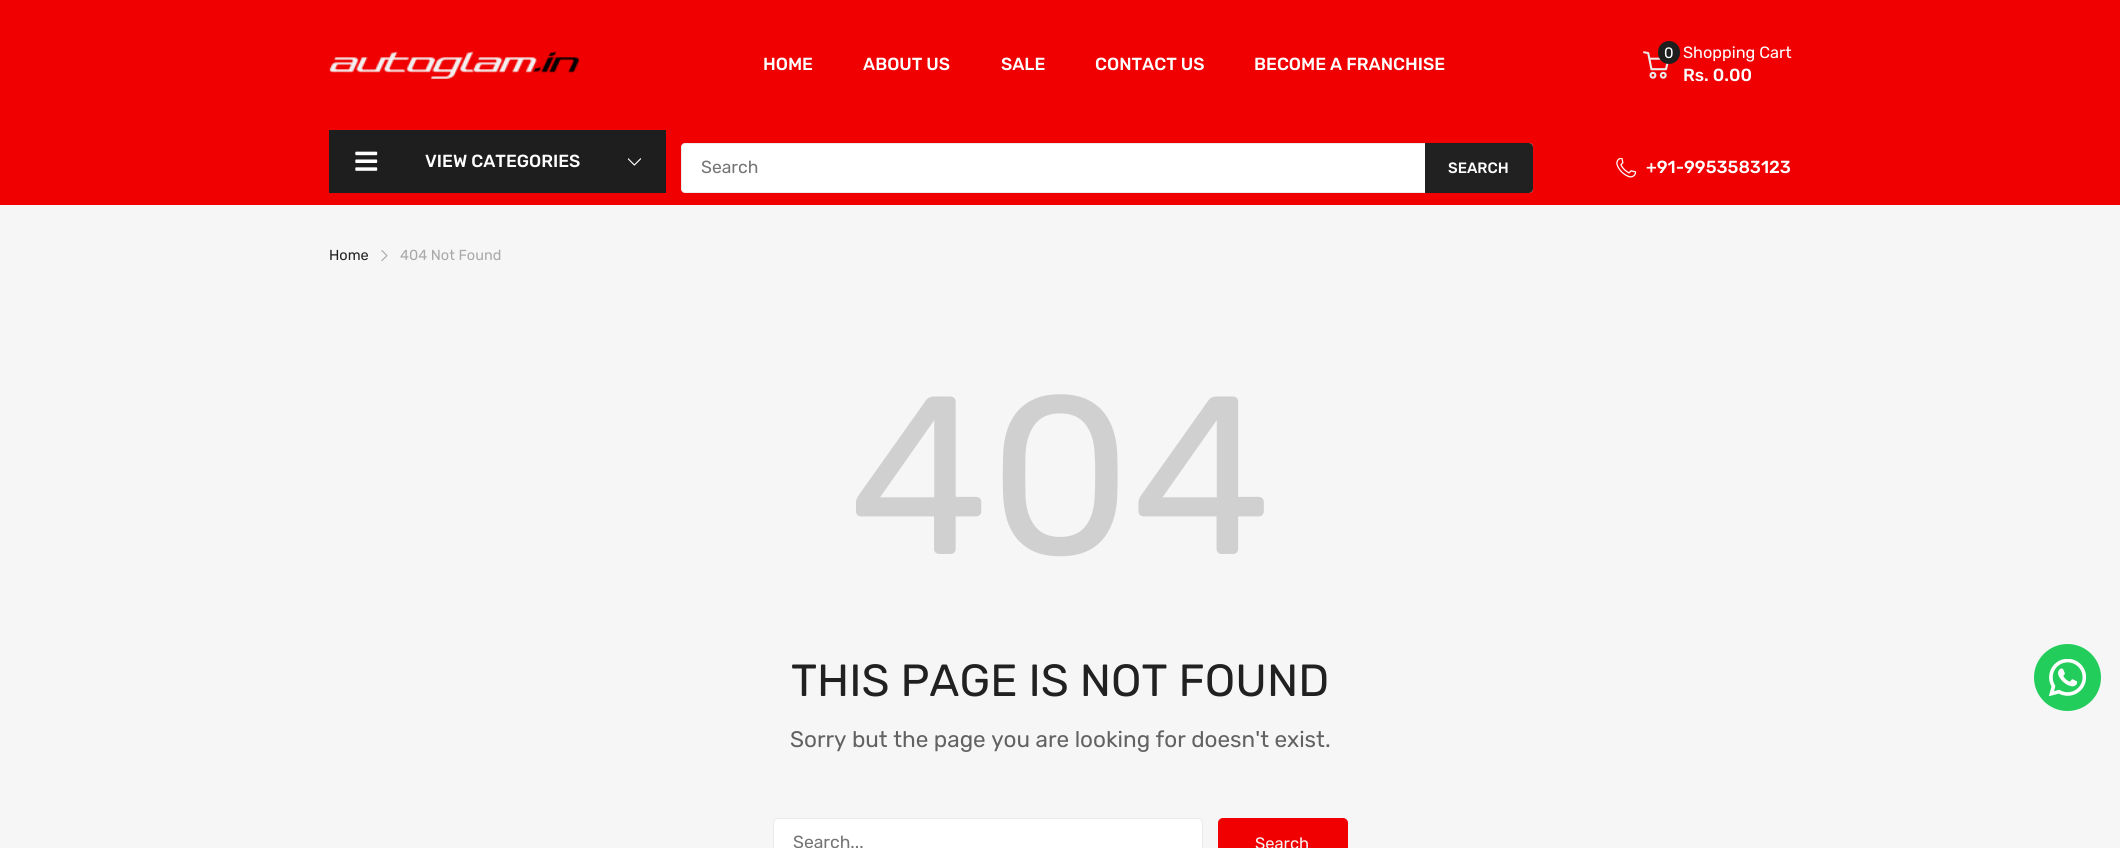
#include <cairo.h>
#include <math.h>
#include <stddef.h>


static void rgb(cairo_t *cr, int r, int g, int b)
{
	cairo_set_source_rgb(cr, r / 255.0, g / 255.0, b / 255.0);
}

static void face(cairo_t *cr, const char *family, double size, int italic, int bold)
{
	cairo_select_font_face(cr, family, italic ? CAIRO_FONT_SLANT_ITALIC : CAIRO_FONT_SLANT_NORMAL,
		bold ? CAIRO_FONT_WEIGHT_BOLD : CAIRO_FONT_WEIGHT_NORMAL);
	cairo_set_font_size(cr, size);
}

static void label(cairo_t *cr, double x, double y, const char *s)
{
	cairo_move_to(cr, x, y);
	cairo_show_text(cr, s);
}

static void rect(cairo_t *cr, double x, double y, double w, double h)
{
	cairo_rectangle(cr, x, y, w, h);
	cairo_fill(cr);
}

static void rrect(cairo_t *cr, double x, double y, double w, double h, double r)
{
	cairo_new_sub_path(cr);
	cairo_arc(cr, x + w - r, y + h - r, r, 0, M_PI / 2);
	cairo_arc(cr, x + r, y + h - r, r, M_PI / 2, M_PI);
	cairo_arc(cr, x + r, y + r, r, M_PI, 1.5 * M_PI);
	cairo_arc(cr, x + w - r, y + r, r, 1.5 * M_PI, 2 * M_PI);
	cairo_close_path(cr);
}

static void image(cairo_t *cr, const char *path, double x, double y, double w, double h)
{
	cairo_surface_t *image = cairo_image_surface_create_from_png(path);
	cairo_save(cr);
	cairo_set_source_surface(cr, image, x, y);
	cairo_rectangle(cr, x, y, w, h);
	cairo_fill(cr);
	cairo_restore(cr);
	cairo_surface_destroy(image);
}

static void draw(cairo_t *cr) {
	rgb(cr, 246, 246, 246);
	cairo_paint(cr);
	rgb(cr, 240, 0, 0);
	rect(cr, 0, 0, 2120, 205);
	image(cr, "image0.png", 329, 51, 250, 28);
	face(cr, "Rubik Medium", 17.5, 0, 0);
	rgb(cr, 255, 255, 255);
	label(cr, 763, 70, "HOME");
	label(cr, 863, 70, "ABOUT US");
	label(cr, 1001, 70, "SALE");
	label(cr, 1095, 70, "CONTACT US");
	label(cr, 1254, 70, "BECOME A FRANCHISE");
	image(cr, "image1.png", 1643, 51, 26, 28);
	rgb(cr, 30, 30, 30);
	rrect(cr, 1658, 41, 22, 23, 11);
	cairo_fill(cr);
	face(cr, "Rubik", 15, 0, 0);
	rgb(cr, 255, 255, 255);
	label(cr, 1664, 58, "0");
	face(cr, "Rubik", 16.25, 0, 0);
	label(cr, 1683, 58, "Shopping Cart");
	face(cr, "Rubik Medium", 17.5, 0, 0);
	label(cr, 1683, 81, "Rs. 0.00");
	rgb(cr, 30, 30, 30);
	rect(cr, 329, 130, 337, 63);
	image(cr, "image2.png", 355, 151, 23, 20);
	rgb(cr, 255, 255, 255);
	label(cr, 425, 167, "VIEW CATEGORIES");
	image(cr, "image3.png", 628, 158, 13, 8);
	rrect(cr, 681.5, 143.5, 851, 49, 3.5);
	cairo_fill_preserve(cr);
	rgb(cr, 235, 235, 235);
	cairo_set_line_width(cr, 1);
	cairo_stroke(cr);
	face(cr, "Rubik", 17.5, 0, 0);
	rgb(cr, 117, 117, 117);
	label(cr, 701, 173, "Search");
	rgb(cr, 33, 33, 33);
	cairo_new_path(cr);
	cairo_move_to(cr, 1425, 143);
	cairo_line_to(cr, 1529, 143);
	cairo_curve_to(cr, 1531, 143, 1533, 145, 1533, 147);
	cairo_line_to(cr, 1533, 189);
	cairo_curve_to(cr, 1533, 191, 1531, 193, 1529, 193);
	cairo_line_to(cr, 1425, 193);
	cairo_close_path(cr);
	cairo_fill(cr);
	face(cr, "Rubik Medium", 15, 0, 0);
	rgb(cr, 255, 255, 255);
	label(cr, 1448, 173, "SEARCH");
	image(cr, "image4.png", 1616, 158, 20, 20);
	face(cr, "Rubik Medium", 17.5, 0, 0);
	label(cr, 1646, 173, "+91-9953583123");
	face(cr, "Rubik", 14.5, 0, 0);
	rgb(cr, 33, 33, 33);
	label(cr, 329, 260, "Home");
	image(cr, "image5.png", 381, 250, 7, 11);
	rgb(cr, 169, 169, 169);
	label(cr, 400, 260, "404 Not Found");
	face(cr, "Rubik", 225, 0, 0);
	rgb(cr, 208, 208, 208);
	label(cr, 849, 554, "404");
	face(cr, "Rubik", 45, 0, 0);
	rgb(cr, 33, 33, 33);
	label(cr, 791, 696, "THIS PAGE IS NOT FOUND");
	face(cr, "Rubik", 22.5, 0, 0);
	rgb(cr, 98, 98, 98);
	label(cr, 790, 747, "Sorry but the page you are looking for doesn't exist.");
	rgb(cr, 255, 255, 255);
	rrect(cr, 773.5, 818.5, 429, 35, 4.5);
	cairo_fill_preserve(cr);
	rgb(cr, 235, 235, 235);
	cairo_stroke(cr);
	face(cr, "Rubik", 17.5, 0, 0);
	rgb(cr, 117, 117, 117);
	label(cr, 793, 848, "Search...");
	rgb(cr, 240, 0, 0);
	rrect(cr, 1218, 818, 130, 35, 5);
	cairo_fill(cr);
	face(cr, "Rubik", 16.5, 0, 0);
	rgb(cr, 246, 246, 246);
	label(cr, 1255, 849, "Search");
	rgb(cr, 34, 205, 91);
	cairo_new_path(cr);
	cairo_arc(cr, 2067.5, 677.5, 33.5, 0, 2 * M_PI);
	cairo_fill(cr);
	image(cr, "image6.png", 2049, 659, 37, 37);
}

int main(void) {
	cairo_surface_t *surface = cairo_image_surface_create(CAIRO_FORMAT_RGB24, 2120, 848);
	cairo_t *cr = cairo_create(surface);
	cairo_font_options_t *options = cairo_font_options_create();
	cairo_font_options_set_hint_metrics(options, CAIRO_HINT_METRICS_OFF);
	cairo_font_options_set_hint_style(options, CAIRO_HINT_STYLE_NONE);
	cairo_set_font_options(cr, options);
	cairo_set_miter_limit(cr, 4);
	draw(cr);
	cairo_surface_write_to_png(surface, "render.png");
	cairo_font_options_destroy(options);
	cairo_destroy(cr);
	cairo_surface_destroy(surface);
	return 0;
}
